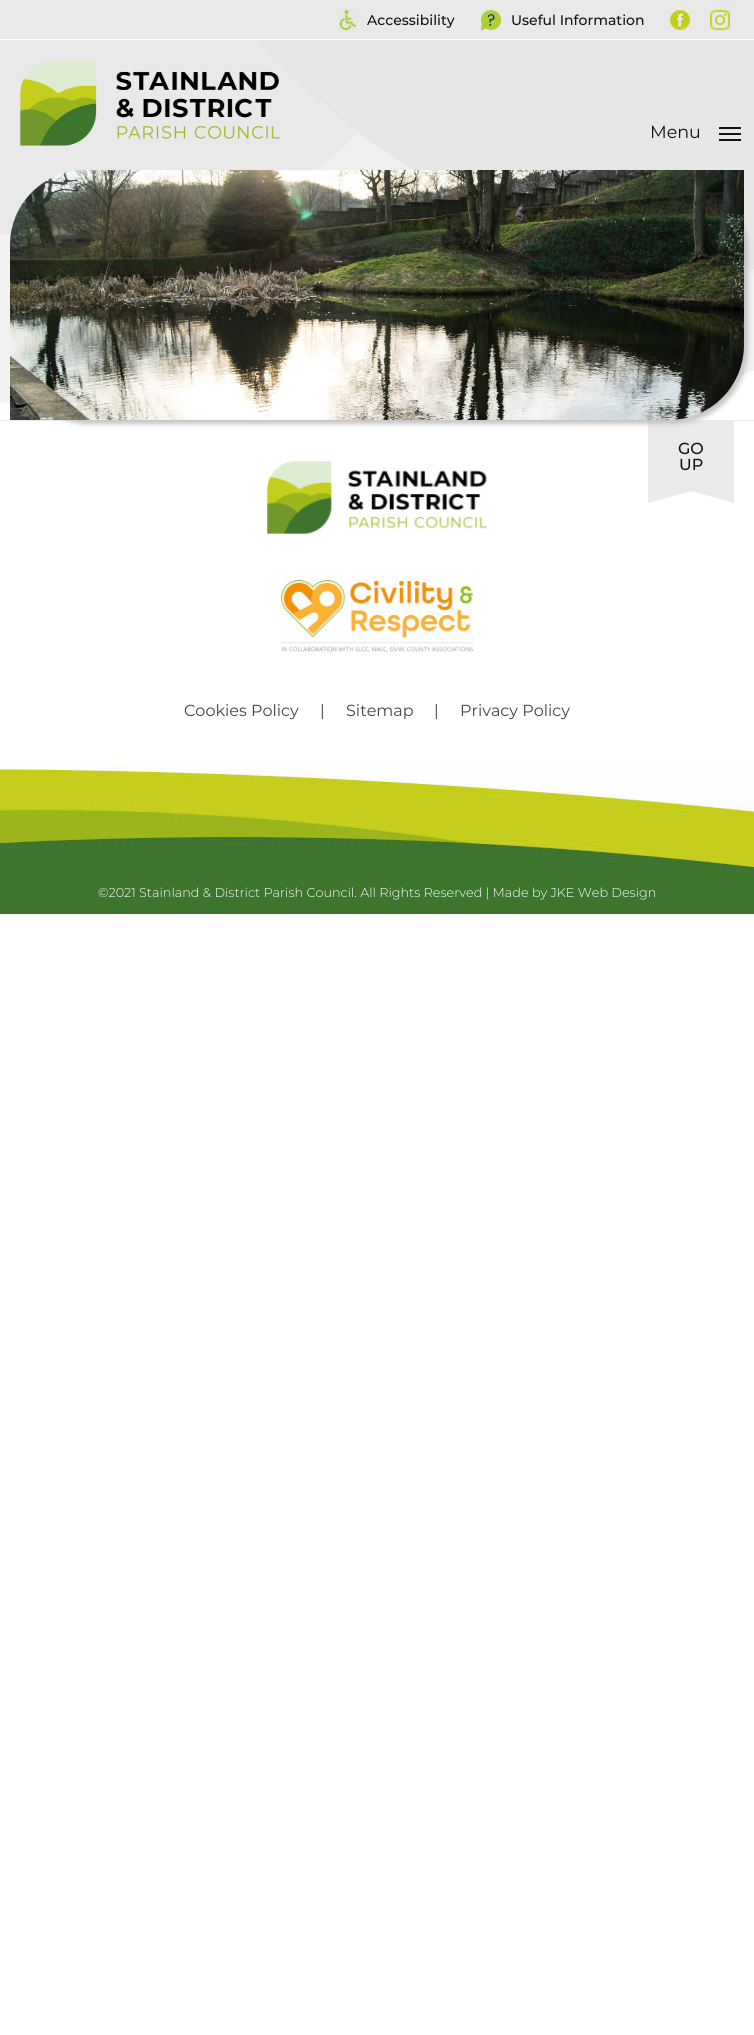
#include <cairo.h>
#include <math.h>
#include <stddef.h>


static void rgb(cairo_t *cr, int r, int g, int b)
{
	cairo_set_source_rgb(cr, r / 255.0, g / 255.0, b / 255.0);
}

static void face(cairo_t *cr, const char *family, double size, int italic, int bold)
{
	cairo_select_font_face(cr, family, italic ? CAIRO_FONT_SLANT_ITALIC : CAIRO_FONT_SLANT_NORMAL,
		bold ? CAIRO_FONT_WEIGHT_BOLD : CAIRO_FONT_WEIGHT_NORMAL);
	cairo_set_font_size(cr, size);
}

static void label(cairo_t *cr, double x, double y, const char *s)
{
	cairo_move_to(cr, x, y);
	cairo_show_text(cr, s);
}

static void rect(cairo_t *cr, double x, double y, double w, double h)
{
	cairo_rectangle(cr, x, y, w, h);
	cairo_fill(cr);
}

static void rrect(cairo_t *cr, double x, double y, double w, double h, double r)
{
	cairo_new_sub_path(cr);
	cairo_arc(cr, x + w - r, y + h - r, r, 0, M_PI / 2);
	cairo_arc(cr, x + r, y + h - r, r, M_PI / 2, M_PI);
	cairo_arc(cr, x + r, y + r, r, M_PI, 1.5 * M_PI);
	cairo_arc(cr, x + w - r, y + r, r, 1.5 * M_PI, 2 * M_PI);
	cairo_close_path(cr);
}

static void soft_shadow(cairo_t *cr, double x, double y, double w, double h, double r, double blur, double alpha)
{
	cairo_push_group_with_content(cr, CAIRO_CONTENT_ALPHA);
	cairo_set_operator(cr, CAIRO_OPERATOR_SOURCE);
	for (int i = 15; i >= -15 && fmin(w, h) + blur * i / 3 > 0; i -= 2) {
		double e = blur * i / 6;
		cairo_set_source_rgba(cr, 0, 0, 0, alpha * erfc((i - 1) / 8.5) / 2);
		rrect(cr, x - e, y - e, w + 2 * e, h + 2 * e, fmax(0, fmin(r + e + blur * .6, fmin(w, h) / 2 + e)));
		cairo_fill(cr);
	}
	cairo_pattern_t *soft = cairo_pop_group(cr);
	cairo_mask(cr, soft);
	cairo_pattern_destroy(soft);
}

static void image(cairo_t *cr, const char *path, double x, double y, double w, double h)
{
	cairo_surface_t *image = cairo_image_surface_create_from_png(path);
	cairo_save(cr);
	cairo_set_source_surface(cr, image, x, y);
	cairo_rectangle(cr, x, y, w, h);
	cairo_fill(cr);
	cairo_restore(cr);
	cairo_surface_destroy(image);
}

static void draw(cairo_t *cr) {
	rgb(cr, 255, 255, 255);
	cairo_paint(cr);
	image(cr, "image0.png", 0, 40, 754, 368);
	rgb(cr, 233, 233, 233);
	rect(cr, 0, 0, 754, 39);
	image(cr, "image1.png", 338, 10, 20, 20);
	face(cr, "Montserrat Medium", 14, 0, 0);
	rgb(cr, 19, 19, 19);
	label(cr, 367, 25, "Accessibility");
	image(cr, "image2.png", 481, 10, 20, 20);
	label(cr, 511, 25, "Useful Information");
	image(cr, "image3.png", 670, 10, 20, 20);
	image(cr, "image4.png", 710, 10, 20, 20);
	image(cr, "image5.png", 20, 60, 260, 86);
	face(cr, "Montserrat", 17.5, 0, 0);
	label(cr, 650, 138, "Menu");
	rect(cr, 719, 127, 22, 2);
	rect(cr, 719, 133, 22, 2);
	rect(cr, 719, 139, 22, 2);
	rgb(cr, 234, 234, 234);
	rect(cr, 0, 420, 754, 1);
	cairo_new_path(cr);
	cairo_move_to(cr, 734, 421);
	cairo_line_to(cr, 648, 421);
	cairo_line_to(cr, 648, 503);
	cairo_line_to(cr, 691, 491);
	cairo_line_to(cr, 734, 503);
	cairo_close_path(cr);
	cairo_fill(cr);
	rgb(cr, 195, 195, 195);
	soft_shadow(cr, 14, 174, 734, 250, 75, 2.5, 1);
	image(cr, "image6.png", 10, 170, 734, 250);
	face(cr, "Montserrat Medium", 16, 0, 0);
	rgb(cr, 19, 19, 19);
	label(cr, 678, 454, "GO");
	label(cr, 679, 470, "UP");
	image(cr, "image7.png", 267, 461, 220, 73);
	image(cr, "image8.png", 281, 580, 193, 72);
	face(cr, "Montserrat", 16, 0, 0);
	rgb(cr, 69, 69, 69);
	label(cr, 184, 716, "Cookies Policy");
	label(cr, 320, 716, "|");
	label(cr, 346, 716, "Sitemap");
	label(cr, 434, 716, "|");
	label(cr, 460, 716, "Privacy Policy");
	image(cr, "image9.png", 0, 764, 754, 150);
	face(cr, "Montserrat Light", 12.8, 0, 0);
	rgb(cr, 255, 255, 255);
	label(cr, 98, 897, "©2021 Stainland & District Parish Council. All Rights Reserved | Made by JKE Web Design");
}

int main(void) {
	cairo_surface_t *surface = cairo_image_surface_create(CAIRO_FORMAT_RGB24, 754, 2035);
	cairo_t *cr = cairo_create(surface);
	cairo_font_options_t *options = cairo_font_options_create();
	cairo_font_options_set_hint_metrics(options, CAIRO_HINT_METRICS_OFF);
	cairo_font_options_set_hint_style(options, CAIRO_HINT_STYLE_NONE);
	cairo_set_font_options(cr, options);
	cairo_set_miter_limit(cr, 4);
	draw(cr);
	cairo_surface_write_to_png(surface, "render.png");
	cairo_font_options_destroy(options);
	cairo_destroy(cr);
	cairo_surface_destroy(surface);
	return 0;
}
